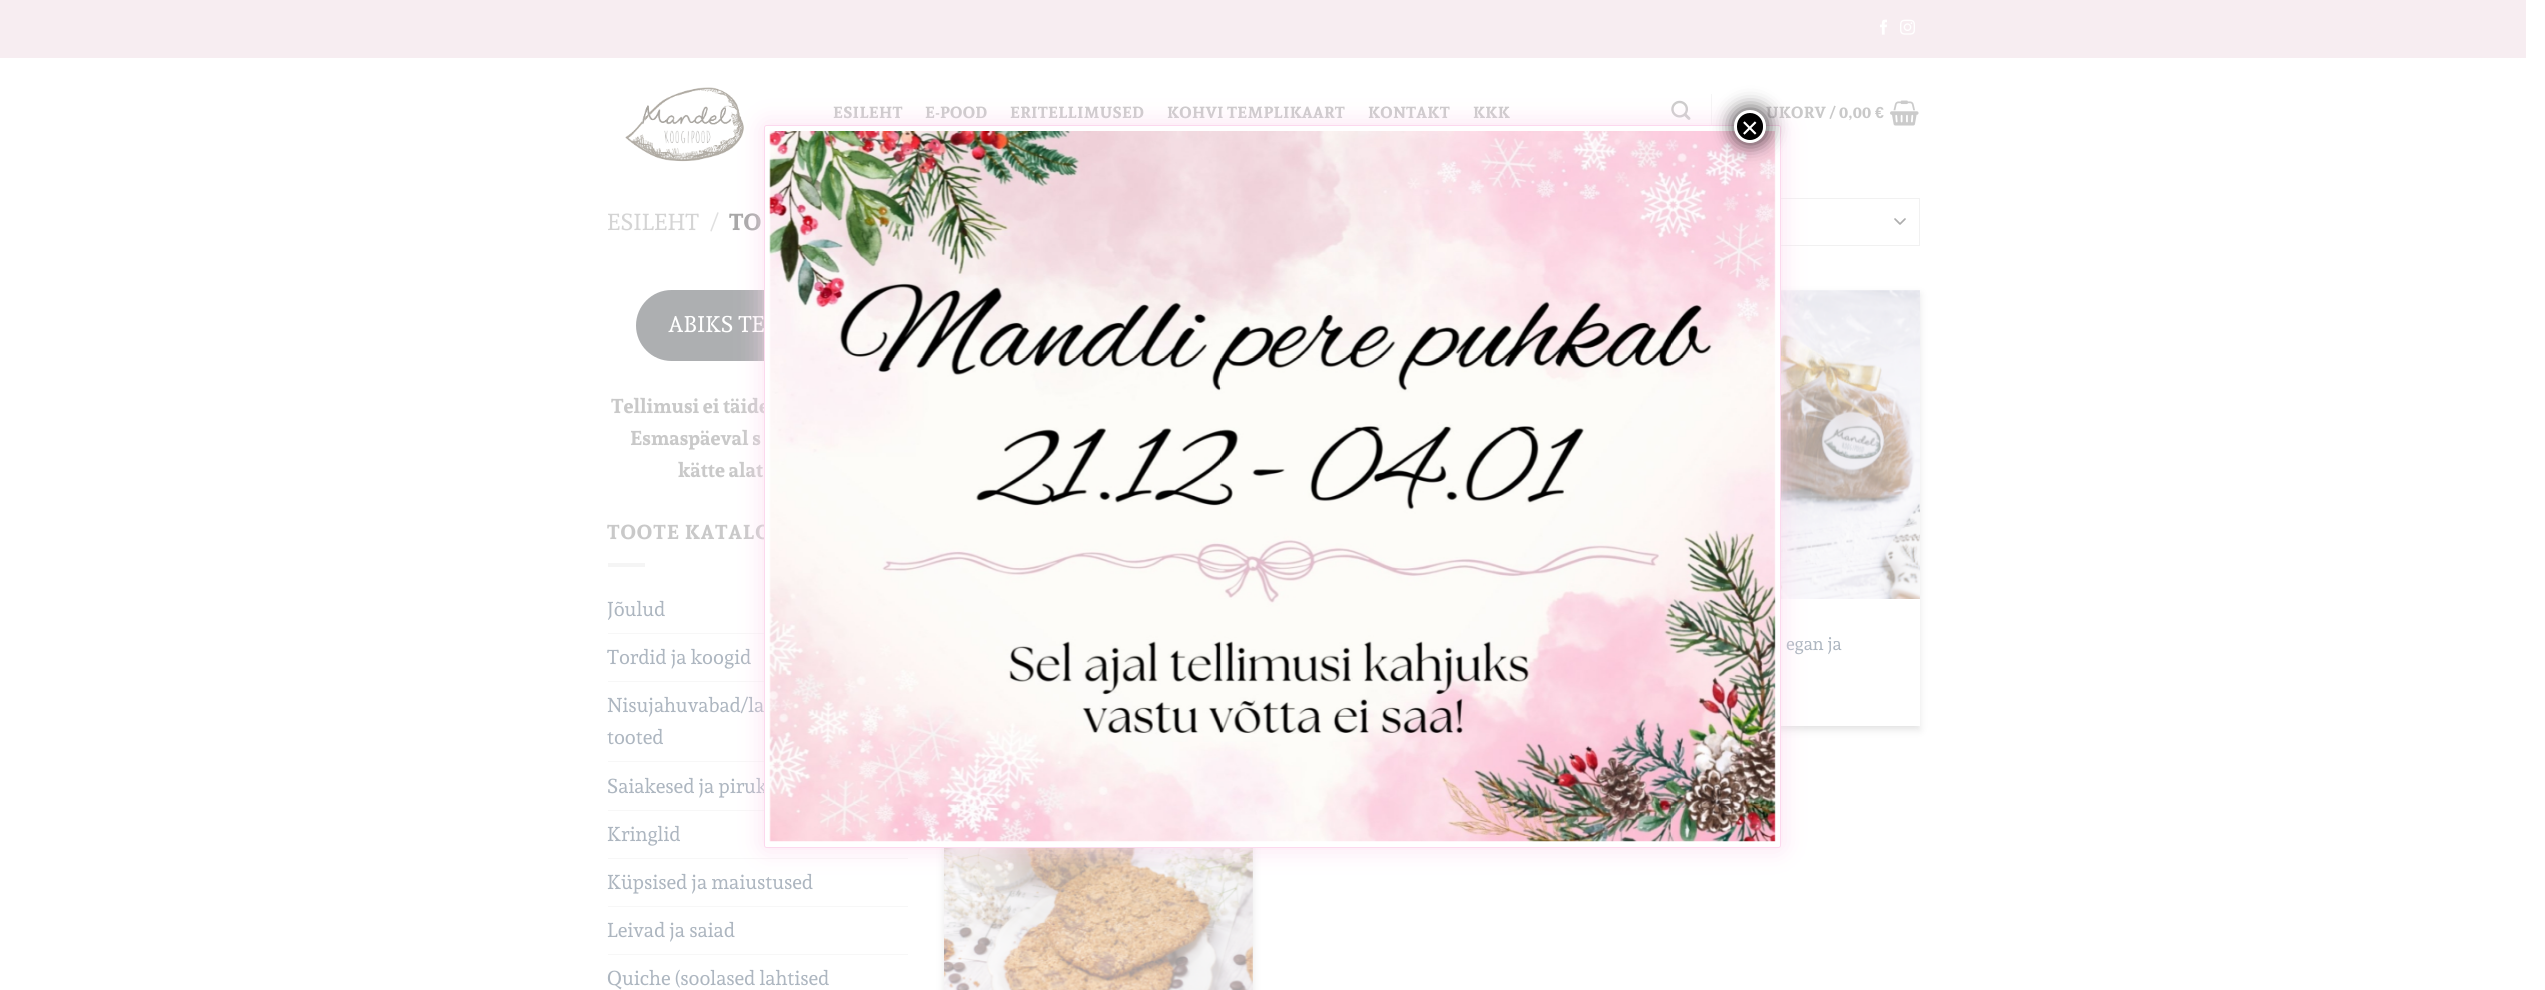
#include <cairo.h>
#include <math.h>
#include <stddef.h>


static void rgb(cairo_t *cr, int r, int g, int b)
{
	cairo_set_source_rgb(cr, r / 255.0, g / 255.0, b / 255.0);
}

static void face(cairo_t *cr, const char *family, double size, int italic, int bold)
{
	cairo_select_font_face(cr, family, italic ? CAIRO_FONT_SLANT_ITALIC : CAIRO_FONT_SLANT_NORMAL,
		bold ? CAIRO_FONT_WEIGHT_BOLD : CAIRO_FONT_WEIGHT_NORMAL);
	cairo_set_font_size(cr, size);
}

static void label(cairo_t *cr, double x, double y, const char *s)
{
	cairo_move_to(cr, x, y);
	cairo_show_text(cr, s);
}

static void tracked(cairo_t *cr, double x, double y, const char *s, double letter, double word)
{
	cairo_move_to(cr, x, y);
	while (*s) {
		char ch[5] = {0};
		int n = 0;
		do ch[n++] = *s++; while ((*s & 0xC0) == 0x80);
		cairo_show_text(cr, ch);
		cairo_rel_move_to(cr, letter + word * (*ch == ' '), 0);
	}
}

static void rect(cairo_t *cr, double x, double y, double w, double h)
{
	cairo_rectangle(cr, x, y, w, h);
	cairo_fill(cr);
}

static void rrect(cairo_t *cr, double x, double y, double w, double h, double r)
{
	cairo_new_sub_path(cr);
	cairo_arc(cr, x + w - r, y + h - r, r, 0, M_PI / 2);
	cairo_arc(cr, x + r, y + h - r, r, M_PI / 2, M_PI);
	cairo_arc(cr, x + r, y + r, r, M_PI, 1.5 * M_PI);
	cairo_arc(cr, x + w - r, y + r, r, 1.5 * M_PI, 2 * M_PI);
	cairo_close_path(cr);
}

static void soft_shadow(cairo_t *cr, double x, double y, double w, double h, double r, double blur, double alpha)
{
	cairo_push_group_with_content(cr, CAIRO_CONTENT_ALPHA);
	cairo_set_operator(cr, CAIRO_OPERATOR_SOURCE);
	for (int i = 15; i >= -15 && fmin(w, h) + blur * i / 3 > 0; i -= 2) {
		double e = blur * i / 6;
		cairo_set_source_rgba(cr, 0, 0, 0, alpha * erfc((i - 1) / 8.5) / 2);
		rrect(cr, x - e, y - e, w + 2 * e, h + 2 * e, fmax(0, fmin(r + e + blur * .6, fmin(w, h) / 2 + e)));
		cairo_fill(cr);
	}
	cairo_pattern_t *soft = cairo_pop_group(cr);
	cairo_mask(cr, soft);
	cairo_pattern_destroy(soft);
}

static void image(cairo_t *cr, const char *path, double x, double y, double w, double h)
{
	cairo_surface_t *image = cairo_image_surface_create_from_png(path);
	cairo_save(cr);
	cairo_set_source_surface(cr, image, x, y);
	cairo_rectangle(cr, x, y, w, h);
	cairo_fill(cr);
	cairo_restore(cr);
	cairo_surface_destroy(image);
}

static void draw(cairo_t *cr) {
	rgb(cr, 255, 255, 255);
	cairo_paint(cr);
	rgb(cr, 247, 237, 241);
	rect(cr, 0, 0, 2526, 58);
	image(cr, "image0.png", 1880, 19, 7, 16);
	image(cr, "image1.png", 1900, 19, 15, 16);
	image(cr, "image2.png", 625, 87, 119, 75);
	face(cr, "Sura", 16, 0, 1);
	rgb(cr, 201, 201, 201);
	tracked(cr, 833, 118, "ESILEHT", 0.3, 0);
	tracked(cr, 925, 118, "E-POOD", 0.3, 0);
	tracked(cr, 1010, 118, "ERITELLIMUSED", 0.3, 0);
	tracked(cr, 1167, 118, "KOHVI TEMPLIKAART", 0.3, 0);
	tracked(cr, 1368, 118, "KONTAKT", 0.3, 0);
	tracked(cr, 1473, 118, "KKK", 0.3, 0);
	image(cr, "image3.png", 1671, 100, 20, 20);
	rgb(cr, 245, 245, 245);
	rect(cr, 1711, 94, 1, 37);
	rgb(cr, 201, 201, 201);
	tracked(cr, 1766, 118, "UKORV / 0,00", 0.3, 0);
	face(cr, "Liberation Sans", 16, 0, 1);
	tracked(cr, 1875, 118, "€", 0.3, 0);
	image(cr, "image4.png", 1890, 100, 29, 26);
	face(cr, "Sura", 23, 0, 0);
	rgb(cr, 212, 212, 212);
	label(cr, 607, 230, "ESILEHT");
	rgb(cr, 224, 224, 224);
	label(cr, 710, 230, "/");
	face(cr, "Sura", 23, 0, 1);
	rgb(cr, 167, 167, 167);
	label(cr, 729, 230, "TO");
	cairo_new_path(cr);
	cairo_move_to(cr, 1895, 219);
	cairo_line_to(cr, 1900, 224);
	cairo_line_to(cr, 1905, 219);
	rgb(cr, 173, 173, 173);
	cairo_set_line_width(cr, 1.7);
	cairo_set_line_cap(cr, CAIRO_LINE_CAP_ROUND);
	cairo_set_line_join(cr, CAIRO_LINE_JOIN_ROUND);
	cairo_stroke(cr);
	cairo_rectangle(cr, 1515.5, 198.5, 404, 47);
	rgb(cr, 241, 241, 241);
	cairo_set_line_width(cr, 1);
	cairo_set_line_cap(cr, CAIRO_LINE_CAP_BUTT);
	cairo_set_line_join(cr, CAIRO_LINE_JOIN_MITER);
	cairo_stroke(cr);
	rgb(cr, 173, 175, 177);
	rrect(cr, 636, 290, 242, 71, 35.5);
	cairo_fill(cr);
	face(cr, "Sura", 22.5, 0, 0);
	rgb(cr, 255, 255, 255);
	label(cr, 668, 332, "ABIKS TE");
	face(cr, "Sura", 20, 0, 1);
	rgb(cr, 201, 201, 201);
	label(cr, 611, 413, "Tellimusi ei täide");
	label(cr, 630, 445, "Esmaspäeval s");
	label(cr, 678, 477, "kätte alat");
	tracked(cr, 607, 539, "TOOTE KATALO", 1, 0);
	rgb(cr, 245, 245, 245);
	rect(cr, 608, 563, 37, 4);
	face(cr, "Sura", 20, 0, 0);
	rgb(cr, 173, 182, 192);
	label(cr, 607, 616, "Jõulud");
	rgb(cr, 247, 247, 247);
	rect(cr, 608, 633, 156, 1);
	rgb(cr, 173, 182, 192);
	label(cr, 607, 664, "Tordid ja koogid");
	rgb(cr, 247, 247, 247);
	rect(cr, 608, 681, 156, 1);
	rgb(cr, 173, 182, 192);
	label(cr, 607, 712, "Nisujahuvabad/la");
	label(cr, 607, 744, "tooted");
	rgb(cr, 247, 247, 247);
	rect(cr, 608, 761, 156, 1);
	rgb(cr, 173, 182, 192);
	label(cr, 607, 793, "Saiakesed ja piruk");
	rgb(cr, 247, 247, 247);
	rect(cr, 608, 810, 156, 1);
	rgb(cr, 173, 182, 192);
	label(cr, 607, 841, "Kringlid");
	rgb(cr, 247, 247, 247);
	rect(cr, 608, 858, 300, 1);
	rgb(cr, 173, 182, 192);
	label(cr, 607, 889, "Küpsised ja maiustused");
	rgb(cr, 247, 247, 247);
	rect(cr, 608, 906, 300, 1);
	rgb(cr, 173, 182, 192);
	label(cr, 607, 937, "Leivad ja saiad");
	rgb(cr, 247, 247, 247);
	rect(cr, 608, 954, 300, 1);
	rgb(cr, 173, 182, 192);
	label(cr, 607, 985, "Quiche (soolased lahtised");
	rgb(cr, 153, 153, 153);
	soft_shadow(cr, 1611, 294, 309, 436, 0, 4, 0.23);
	soft_shadow(cr, 1616, 299, 299, 426, 0, 4, 0.16);
	rgb(cr, 255, 255, 255);
	rect(cr, 1781, 290, 139, 436);
	image(cr, "image5.png", 1781, 290, 139, 309);
	face(cr, "Sura", 18, 0, 0);
	rgb(cr, 173, 182, 192);
	label(cr, 1786, 650, "egan ja");
	rgb(cr, 153, 153, 153);
	soft_shadow(cr, 944, 754, 309, 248, 0, 4, 0.23);
	image(cr, "image6.png", 944, 848, 309, 142);
	rgb(cr, 252, 217, 238);
	soft_shadow(cr, 764, 125, 1017, 723, 2.5, 12.5, 0.8);
	rgb(cr, 255, 255, 255);
	rrect(cr, 764.5, 125.5, 1016, 722, 2);
	cairo_fill_preserve(cr);
	rgb(cr, 252, 217, 238);
	cairo_stroke(cr);
	image(cr, "image7.png", 769, 131, 1007, 711);
	rgb(cr, 2, 2, 2);
	soft_shadow(cr, 1733, 109, 35, 35, 17.5, 9.5, 0.75);
	rgb(cr, 0, 0, 0);
	rrect(cr, 1735.5, 111.5, 29, 30, 14.5);
	cairo_fill_preserve(cr);
	rgb(cr, 255, 255, 255);
	cairo_set_line_width(cr, 3);
	cairo_stroke(cr);
	face(cr, "Liberation Sans", 30, 0, 0);
	label(cr, 1741, 138, "×");
}

int main(void) {
	cairo_surface_t *surface = cairo_image_surface_create(CAIRO_FORMAT_RGB24, 2545, 990);
	cairo_t *cr = cairo_create(surface);
	cairo_font_options_t *options = cairo_font_options_create();
	cairo_font_options_set_hint_metrics(options, CAIRO_HINT_METRICS_OFF);
	cairo_font_options_set_hint_style(options, CAIRO_HINT_STYLE_NONE);
	cairo_set_font_options(cr, options);
	cairo_set_miter_limit(cr, 4);
	draw(cr);
	cairo_surface_write_to_png(surface, "render.png");
	cairo_font_options_destroy(options);
	cairo_destroy(cr);
	cairo_surface_destroy(surface);
	return 0;
}
